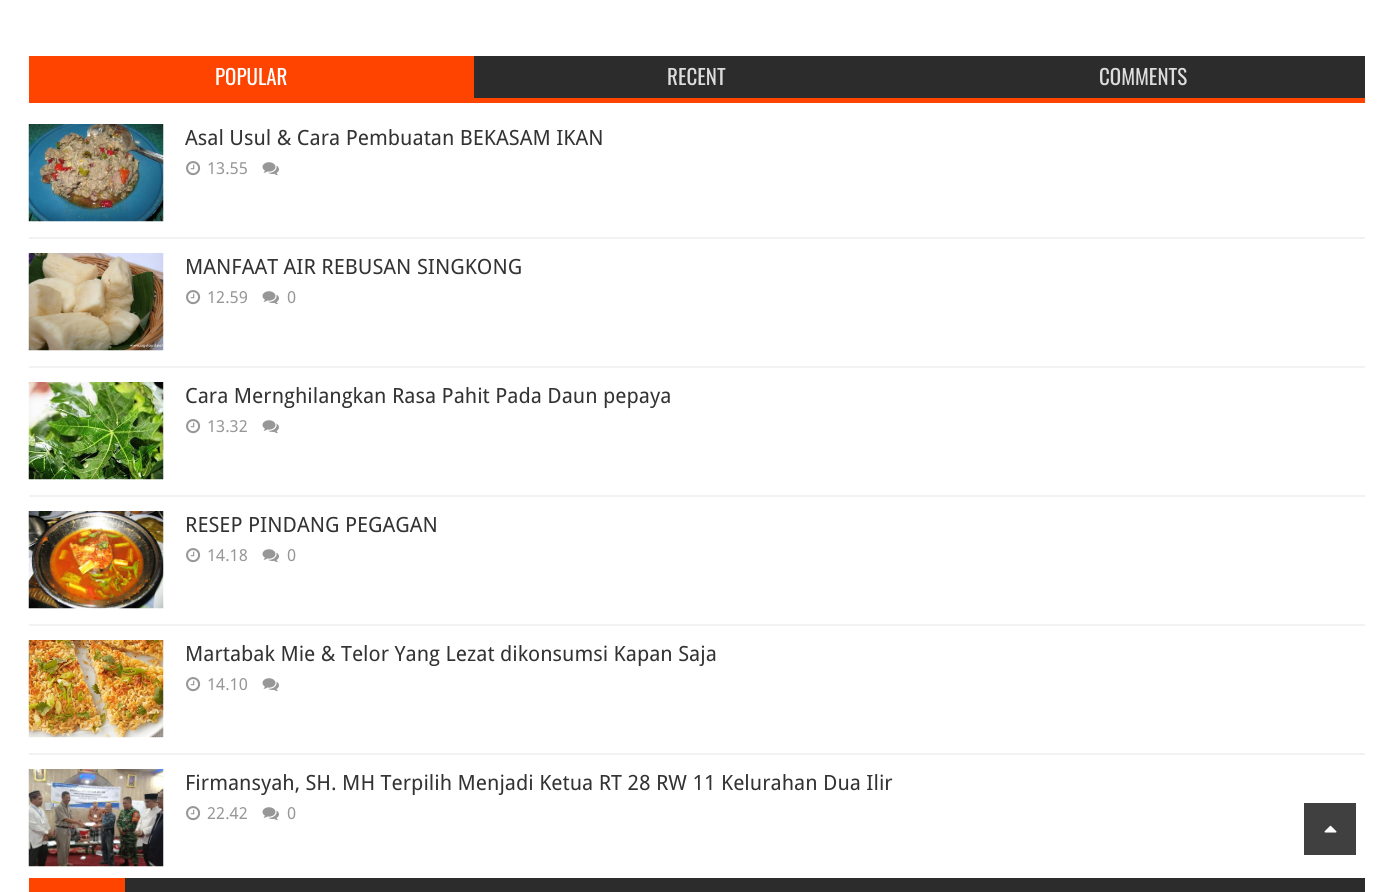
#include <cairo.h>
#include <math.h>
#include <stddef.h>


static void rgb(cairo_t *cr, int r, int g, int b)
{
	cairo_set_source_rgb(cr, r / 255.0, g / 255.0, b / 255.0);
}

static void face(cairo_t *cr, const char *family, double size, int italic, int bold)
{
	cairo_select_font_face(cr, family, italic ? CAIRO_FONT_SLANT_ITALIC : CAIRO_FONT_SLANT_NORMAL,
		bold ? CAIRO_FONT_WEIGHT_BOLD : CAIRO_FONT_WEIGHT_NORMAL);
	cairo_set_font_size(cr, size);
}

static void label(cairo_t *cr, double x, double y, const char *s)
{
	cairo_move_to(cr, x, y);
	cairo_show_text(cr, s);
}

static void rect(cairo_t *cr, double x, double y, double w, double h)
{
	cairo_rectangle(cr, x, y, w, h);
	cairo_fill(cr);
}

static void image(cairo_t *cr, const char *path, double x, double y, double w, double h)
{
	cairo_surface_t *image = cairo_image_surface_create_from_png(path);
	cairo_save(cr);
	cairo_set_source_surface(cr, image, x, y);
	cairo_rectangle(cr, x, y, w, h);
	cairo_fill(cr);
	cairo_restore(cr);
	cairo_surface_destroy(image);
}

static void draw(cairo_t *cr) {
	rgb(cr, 255, 255, 255);
	cairo_paint(cr);
	rgb(cr, 44, 44, 44);
	rect(cr, 474, 56, 891, 42);
	rgb(cr, 255, 68, 0);
	rect(cr, 29, 98, 1336, 5);
	rect(cr, 29, 56, 445, 42);
	face(cr, "Oswald", 21, 0, 0);
	rgb(cr, 255, 255, 255);
	label(cr, 215, 85, "POPULAR");
	rgb(cr, 221, 221, 221);
	label(cr, 667, 85, "RECENT");
	label(cr, 1099, 85, "COMMENTS");
	image(cr, "image0.png", 28, 124, 136, 98);
	face(cr, "Droid Sans", 21, 0, 0);
	rgb(cr, 51, 51, 51);
	label(cr, 185, 145, "Asal Usul & Cara Pembuatan BEKASAM IKAN");
	image(cr, "image1.png", 186, 161, 15, 15);
	face(cr, "Droid Sans", 16.5, 0, 0);
	rgb(cr, 151, 151, 151);
	label(cr, 207, 174, "13.55");
	image(cr, "image2.png", 262, 162, 17, 14);
	rgb(cr, 242, 242, 242);
	rect(cr, 29, 237, 1336, 2);
	image(cr, "image3.png", 28, 253, 136, 98);
	face(cr, "Droid Sans", 21, 0, 0);
	rgb(cr, 51, 51, 51);
	label(cr, 185, 274, "MANFAAT AIR REBUSAN SINGKONG");
	image(cr, "image1.png", 186, 290, 15, 15);
	face(cr, "Droid Sans", 16.5, 0, 0);
	rgb(cr, 151, 151, 151);
	label(cr, 207, 303, "12.59");
	image(cr, "image2.png", 262, 291, 17, 14);
	label(cr, 287, 303, "0");
	rgb(cr, 242, 242, 242);
	rect(cr, 29, 366, 1336, 2);
	image(cr, "image4.png", 28, 382, 136, 98);
	face(cr, "Droid Sans", 21, 0, 0);
	rgb(cr, 51, 51, 51);
	label(cr, 185, 403, "Cara Mernghilangkan Rasa Pahit Pada Daun pepaya");
	image(cr, "image1.png", 186, 419, 15, 15);
	face(cr, "Droid Sans", 16.5, 0, 0);
	rgb(cr, 151, 151, 151);
	label(cr, 207, 432, "13.32");
	image(cr, "image2.png", 262, 420, 17, 14);
	rgb(cr, 242, 242, 242);
	rect(cr, 29, 495, 1336, 2);
	image(cr, "image5.png", 28, 511, 136, 98);
	face(cr, "Droid Sans", 21, 0, 0);
	rgb(cr, 51, 51, 51);
	label(cr, 185, 532, "RESEP PINDANG PEGAGAN");
	image(cr, "image1.png", 186, 548, 15, 15);
	face(cr, "Droid Sans", 16.5, 0, 0);
	rgb(cr, 151, 151, 151);
	label(cr, 207, 561, "14.18");
	image(cr, "image2.png", 262, 549, 17, 14);
	label(cr, 287, 561, "0");
	rgb(cr, 242, 242, 242);
	rect(cr, 29, 624, 1336, 2);
	image(cr, "image6.png", 28, 640, 136, 98);
	face(cr, "Droid Sans", 21, 0, 0);
	rgb(cr, 51, 51, 51);
	label(cr, 185, 661, "Martabak Mie & Telor Yang Lezat dikonsumsi Kapan Saja");
	image(cr, "image1.png", 186, 677, 15, 15);
	face(cr, "Droid Sans", 16.5, 0, 0);
	rgb(cr, 151, 151, 151);
	label(cr, 207, 690, "14.10");
	image(cr, "image2.png", 262, 678, 17, 14);
	rgb(cr, 242, 242, 242);
	rect(cr, 29, 753, 1336, 2);
	image(cr, "image7.png", 28, 769, 136, 98);
	face(cr, "Droid Sans", 21, 0, 0);
	rgb(cr, 51, 51, 51);
	label(cr, 185, 790, "Firmansyah, SH. MH Terpilih Menjadi Ketua RT 28 RW 11 Kelurahan Dua Ilir");
	image(cr, "image1.png", 186, 806, 15, 15);
	face(cr, "Droid Sans", 16.5, 0, 0);
	rgb(cr, 151, 151, 151);
	label(cr, 207, 819, "22.42");
	image(cr, "image2.png", 262, 807, 17, 14);
	label(cr, 287, 819, "0");
	rgb(cr, 44, 44, 44);
	rect(cr, 125, 878, 1240, 14);
	rgb(cr, 255, 68, 0);
	rect(cr, 29, 878, 96, 14);
	rgb(cr, 64, 64, 64);
	rect(cr, 1304, 803, 52, 52);
	image(cr, "image8.png", 1324, 825, 13, 8);
}

int main(void) {
	cairo_surface_t *surface = cairo_image_surface_create(CAIRO_FORMAT_RGB24, 1393, 892);
	cairo_t *cr = cairo_create(surface);
	cairo_font_options_t *options = cairo_font_options_create();
	cairo_font_options_set_hint_metrics(options, CAIRO_HINT_METRICS_OFF);
	cairo_font_options_set_hint_style(options, CAIRO_HINT_STYLE_NONE);
	cairo_set_font_options(cr, options);
	cairo_set_miter_limit(cr, 4);
	draw(cr);
	cairo_surface_write_to_png(surface, "render.png");
	cairo_font_options_destroy(options);
	cairo_destroy(cr);
	cairo_surface_destroy(surface);
	return 0;
}
